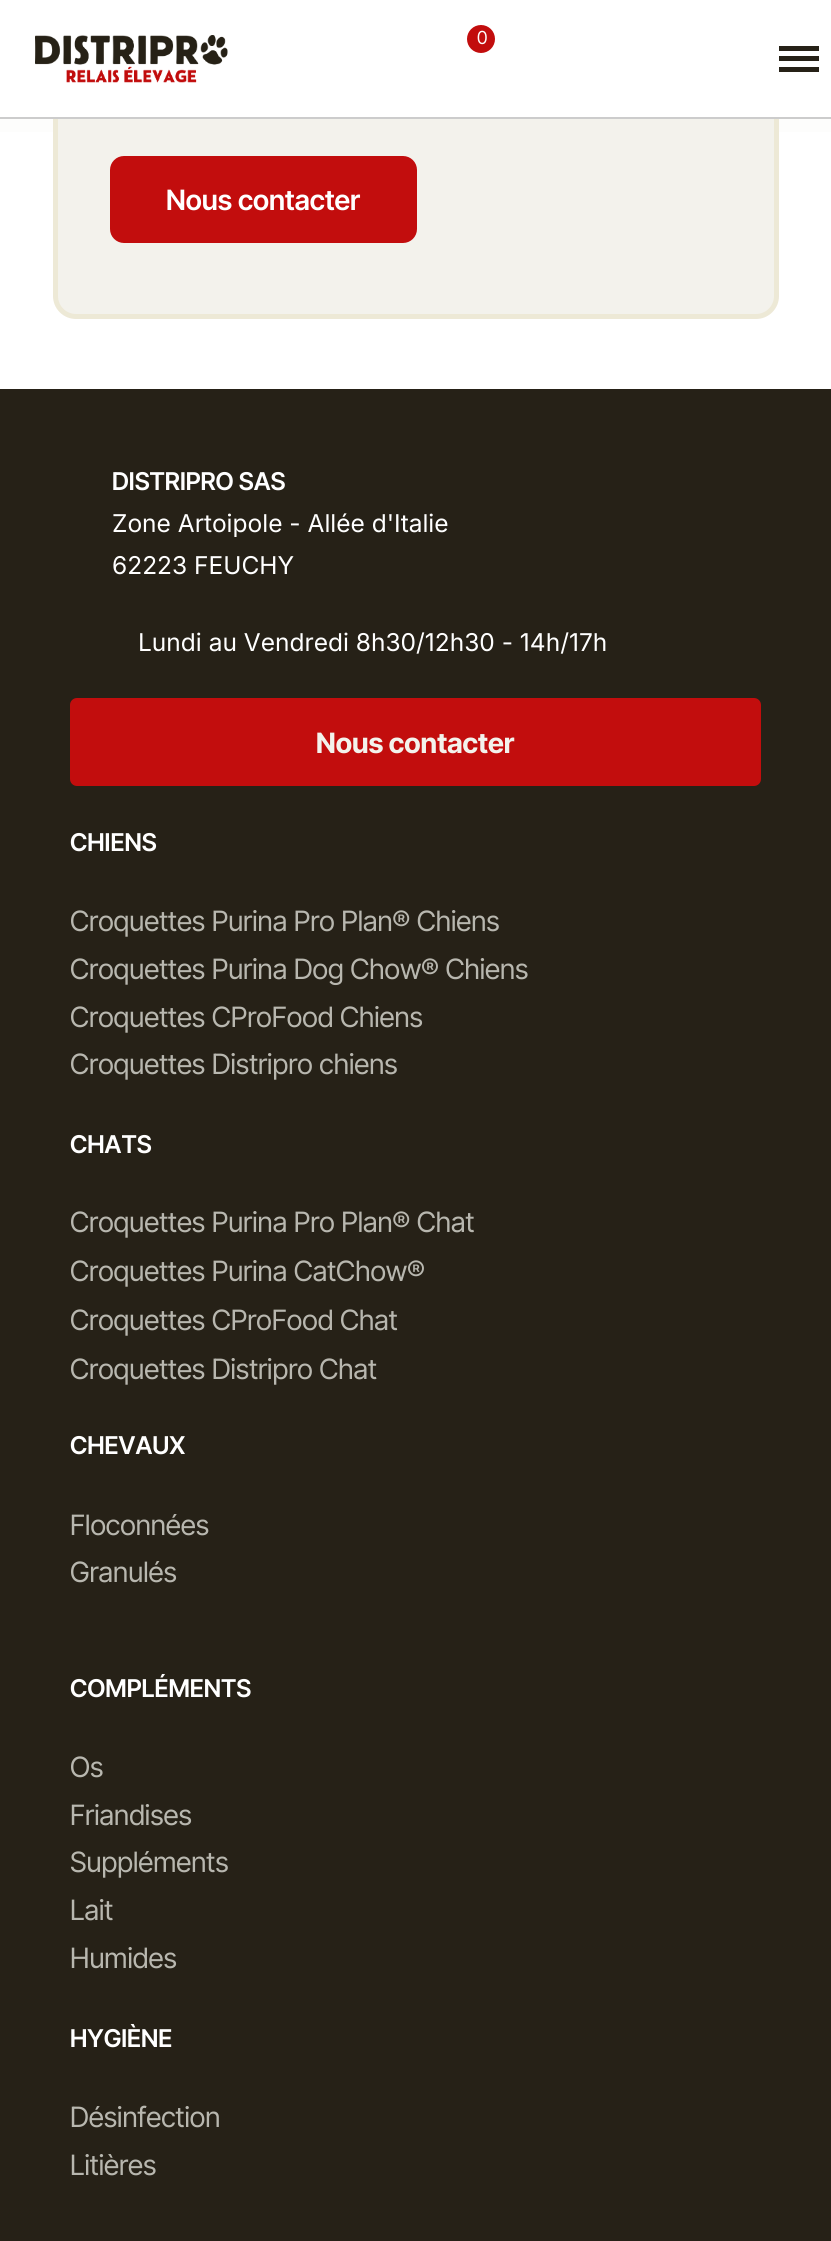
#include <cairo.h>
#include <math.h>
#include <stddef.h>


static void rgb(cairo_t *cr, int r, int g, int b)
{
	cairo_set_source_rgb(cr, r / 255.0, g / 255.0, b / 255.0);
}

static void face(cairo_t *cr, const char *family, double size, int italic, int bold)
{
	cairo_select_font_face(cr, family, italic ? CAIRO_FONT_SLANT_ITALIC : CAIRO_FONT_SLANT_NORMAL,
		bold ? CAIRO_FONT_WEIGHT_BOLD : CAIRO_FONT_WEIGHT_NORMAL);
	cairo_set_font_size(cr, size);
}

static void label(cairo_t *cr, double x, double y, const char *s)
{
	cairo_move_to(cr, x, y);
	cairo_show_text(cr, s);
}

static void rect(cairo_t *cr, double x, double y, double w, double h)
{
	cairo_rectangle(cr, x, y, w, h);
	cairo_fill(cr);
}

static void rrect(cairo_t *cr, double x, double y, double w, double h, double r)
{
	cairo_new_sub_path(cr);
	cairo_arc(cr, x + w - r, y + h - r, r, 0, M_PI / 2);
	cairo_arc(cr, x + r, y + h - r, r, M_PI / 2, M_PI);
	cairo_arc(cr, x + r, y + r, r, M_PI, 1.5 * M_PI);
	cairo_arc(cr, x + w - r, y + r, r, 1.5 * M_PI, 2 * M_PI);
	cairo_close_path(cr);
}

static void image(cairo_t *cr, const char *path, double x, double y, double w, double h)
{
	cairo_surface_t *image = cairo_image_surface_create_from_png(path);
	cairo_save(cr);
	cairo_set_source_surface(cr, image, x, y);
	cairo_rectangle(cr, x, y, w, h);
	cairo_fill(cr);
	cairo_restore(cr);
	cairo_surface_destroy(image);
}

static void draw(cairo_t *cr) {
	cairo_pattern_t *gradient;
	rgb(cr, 255, 255, 255);
	cairo_paint(cr);
	gradient = cairo_pattern_create_linear(416, -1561, 416, 389);
	cairo_pattern_add_color_stop_rgba(gradient, 0, 0.953, 0.949, 0.925, 1);
	cairo_pattern_add_color_stop_rgba(gradient, 1, 1, 1, 1, 1);
	cairo_set_source(cr, gradient);
	cairo_pattern_destroy(gradient);
	rect(cr, 0, 119, 831, 13);
	rgb(cr, 243, 242, 236);
	rrect(cr, 53, -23, 726, 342, 23);
	cairo_fill(cr);
	rrect(cr, 55.5, -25.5, 721, 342, 20.5);
	cairo_set_source_rgba(cr, 0.761, 0.627, 0.2, 0.12);
	cairo_set_line_width(cr, 5);
	cairo_stroke(cr);
	rgb(cr, 255, 255, 255);
	rect(cr, 53, 0, 726, 117);
	rgb(cr, 204, 204, 204);
	rect(cr, 0, 117, 831, 2);
	image(cr, "image0.png", 35, 35, 193, 48);
	rgb(cr, 194, 13, 13);
	cairo_arc(cr, 481, 39, 14, 0, 2 * M_PI);
	cairo_fill(cr);
	face(cr, "Inter Tight", 18, 0, 0);
	rgb(cr, 255, 255, 255);
	label(cr, 477, 44, "0");
	rgb(cr, 38, 33, 23);
	rect(cr, 779, 56, 40, 5);
	rect(cr, 779, 46, 40, 5);
	rect(cr, 779, 67, 40, 5);
	rgb(cr, 194, 13, 13);
	rrect(cr, 110, 156, 307, 87, 14);
	cairo_fill(cr);
	face(cr, "Inter Tight SemiBold", 28, 0, 0);
	rgb(cr, 255, 255, 255);
	label(cr, 166, 210, "Nous contacter");
	rgb(cr, 38, 33, 23);
	rect(cr, 0, 389, 831, 1852);
	face(cr, "Inter Tight SemiBold", 24.5, 0, 0);
	rgb(cr, 255, 255, 255);
	label(cr, 112, 490, "DISTRIPRO SAS");
	face(cr, "Inter", 24.5, 0, 0);
	label(cr, 112, 532, "Zone Artoipole - Allée d'Italie");
	label(cr, 112, 574, "62223 FEUCHY");
	label(cr, 138, 651, "Lundi au Vendredi 8h30/12h30 - 14h/17h");
	rgb(cr, 194, 13, 13);
	rrect(cr, 70, 698, 691, 88, 7);
	cairo_fill(cr);
	face(cr, "Inter Tight", 28, 0, 1);
	rgb(cr, 243, 242, 236);
	label(cr, 316, 753, "Nous contacter");
	face(cr, "Inter Tight SemiBold", 24.5, 0, 0);
	rgb(cr, 255, 255, 255);
	label(cr, 70, 851, "CHIENS");
	face(cr, "Inter Tight", 28, 0, 0);
	rgb(cr, 184, 183, 175);
	label(cr, 70, 931, "Croquettes Purina Pro Plan® Chiens");
	label(cr, 70, 979, "Croquettes Purina Dog Chow® Chiens");
	label(cr, 70, 1027, "Croquettes CProFood Chiens");
	label(cr, 70, 1074, "Croquettes Distripro chiens");
	face(cr, "Inter Tight SemiBold", 24.5, 0, 0);
	rgb(cr, 255, 255, 255);
	label(cr, 70, 1153, "CHATS");
	face(cr, "Inter Tight", 28, 0, 0);
	rgb(cr, 184, 183, 175);
	label(cr, 70, 1232, "Croquettes Purina Pro Plan® Chat");
	label(cr, 70, 1281, "Croquettes Purina CatChow®");
	label(cr, 70, 1330, "Croquettes CProFood Chat");
	label(cr, 70, 1379, "Croquettes Distripro Chat");
	face(cr, "Inter Tight SemiBold", 24.5, 0, 0);
	rgb(cr, 255, 255, 255);
	label(cr, 70, 1454, "CHEVAUX");
	face(cr, "Inter Tight", 28, 0, 0);
	rgb(cr, 184, 183, 175);
	label(cr, 70, 1535, "Floconnées");
	label(cr, 70, 1582, "Granulés");
	face(cr, "Inter Tight SemiBold", 24.5, 0, 0);
	rgb(cr, 255, 255, 255);
	label(cr, 70, 1697, "COMPLÉMENTS");
	face(cr, "Inter Tight", 28, 0, 0);
	rgb(cr, 184, 183, 175);
	label(cr, 70, 1777, "Os");
	label(cr, 70, 1825, "Friandises");
	label(cr, 70, 1872, "Suppléments");
	label(cr, 70, 1920, "Lait");
	label(cr, 70, 1968, "Humides");
	face(cr, "Inter Tight SemiBold", 24.5, 0, 0);
	rgb(cr, 255, 255, 255);
	label(cr, 70, 2047, "HYGIÈNE");
	face(cr, "Inter Tight", 28, 0, 0);
	rgb(cr, 184, 183, 175);
	label(cr, 70, 2127, "Désinfection");
	label(cr, 70, 2175, "Litières");
}

int main(void) {
	cairo_surface_t *surface = cairo_image_surface_create(CAIRO_FORMAT_RGB24, 831, 2241);
	cairo_t *cr = cairo_create(surface);
	cairo_font_options_t *options = cairo_font_options_create();
	cairo_font_options_set_hint_metrics(options, CAIRO_HINT_METRICS_OFF);
	cairo_font_options_set_hint_style(options, CAIRO_HINT_STYLE_NONE);
	cairo_set_font_options(cr, options);
	cairo_set_miter_limit(cr, 4);
	draw(cr);
	cairo_surface_write_to_png(surface, "render.png");
	cairo_font_options_destroy(options);
	cairo_destroy(cr);
	cairo_surface_destroy(surface);
	return 0;
}
